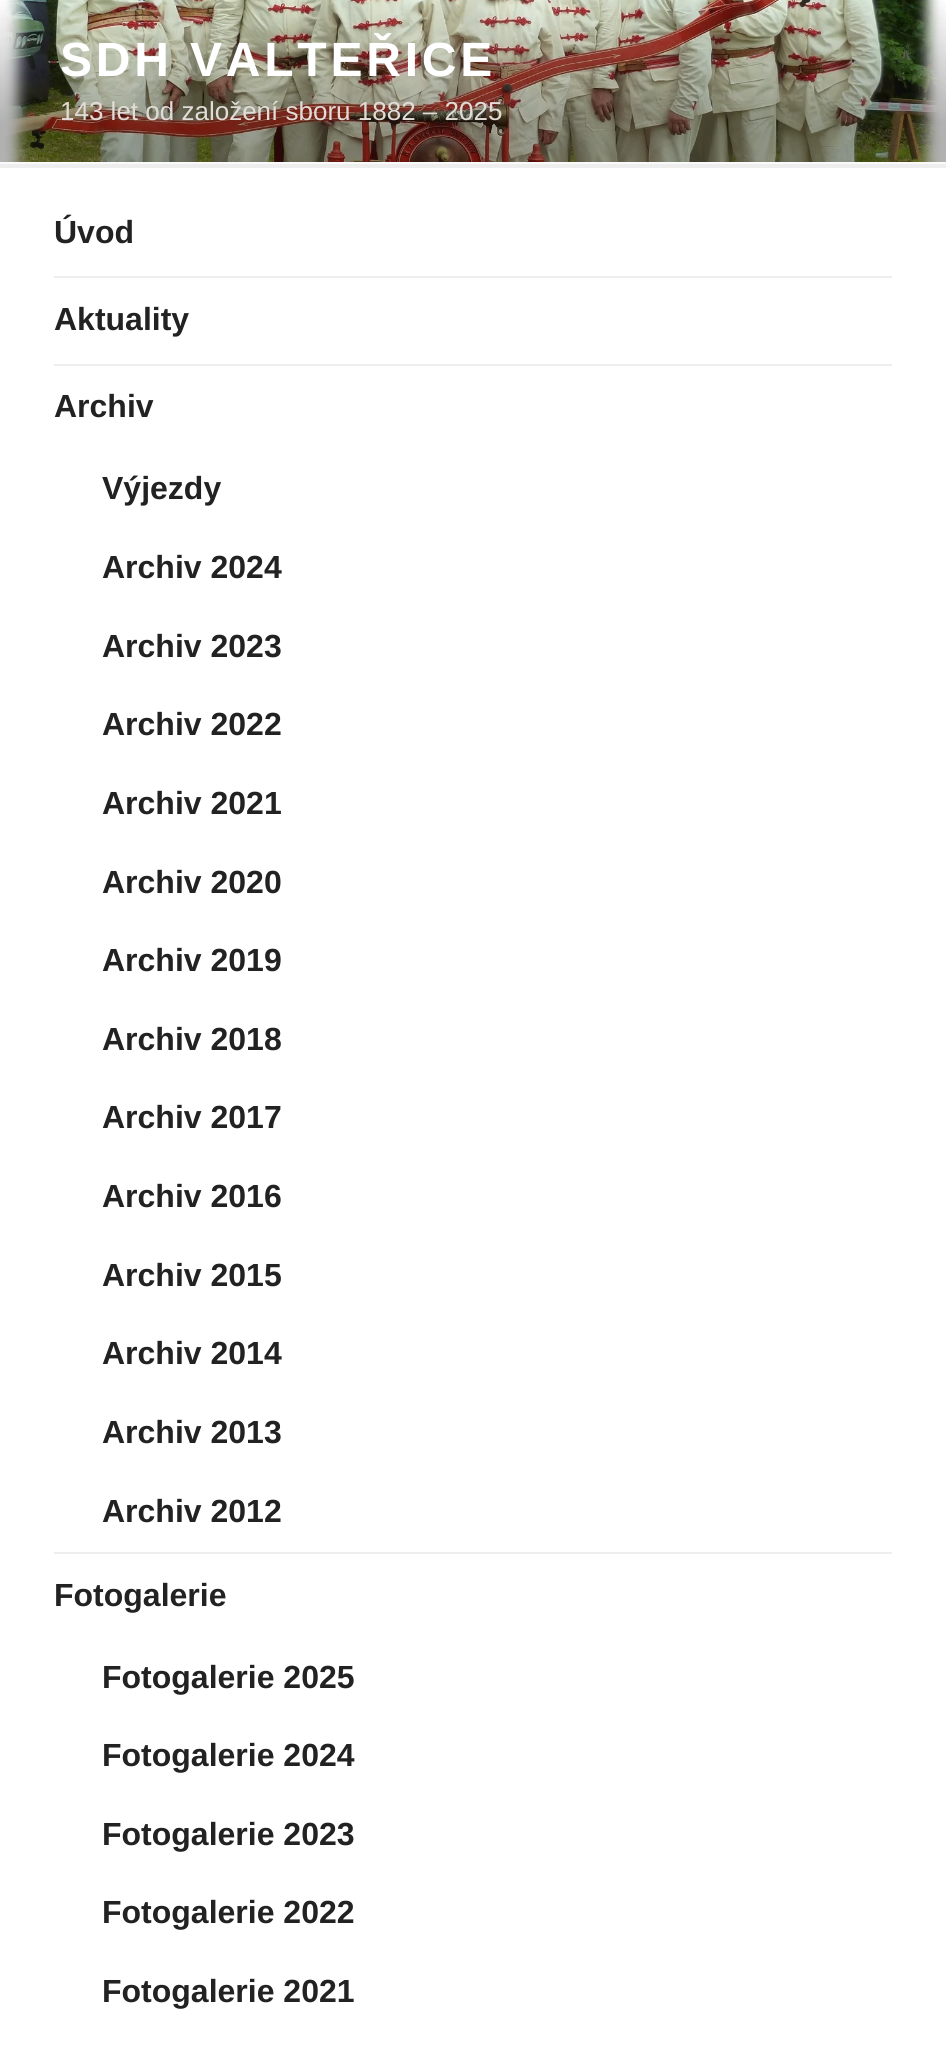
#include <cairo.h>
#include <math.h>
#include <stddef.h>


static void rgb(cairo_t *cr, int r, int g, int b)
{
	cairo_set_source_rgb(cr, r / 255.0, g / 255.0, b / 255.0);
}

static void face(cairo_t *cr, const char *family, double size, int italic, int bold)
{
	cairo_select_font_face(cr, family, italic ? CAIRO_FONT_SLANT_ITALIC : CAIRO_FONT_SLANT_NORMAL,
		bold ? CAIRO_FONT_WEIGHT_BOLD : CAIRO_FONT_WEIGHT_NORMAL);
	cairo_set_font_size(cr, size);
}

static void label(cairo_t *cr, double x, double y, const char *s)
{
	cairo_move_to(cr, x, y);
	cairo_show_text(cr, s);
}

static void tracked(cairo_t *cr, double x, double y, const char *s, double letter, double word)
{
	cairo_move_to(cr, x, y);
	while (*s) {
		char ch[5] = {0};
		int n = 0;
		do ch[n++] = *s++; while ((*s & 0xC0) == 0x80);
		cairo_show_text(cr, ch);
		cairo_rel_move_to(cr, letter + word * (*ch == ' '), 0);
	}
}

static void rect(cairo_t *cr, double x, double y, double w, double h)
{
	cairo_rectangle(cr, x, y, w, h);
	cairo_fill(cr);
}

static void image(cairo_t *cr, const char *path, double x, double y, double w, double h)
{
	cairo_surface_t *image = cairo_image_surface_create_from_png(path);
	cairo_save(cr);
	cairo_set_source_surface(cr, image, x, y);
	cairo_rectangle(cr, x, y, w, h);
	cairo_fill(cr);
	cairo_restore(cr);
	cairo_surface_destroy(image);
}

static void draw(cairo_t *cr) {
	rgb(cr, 250, 250, 250);
	cairo_paint(cr);
	image(cr, "image0.png", 0, 0, 946, 162);
	face(cr, "Liberation Sans", 48, 0, 1);
	rgb(cr, 255, 255, 255);
	tracked(cr, 60, 76, "SDH VALTEŘICE", 3.8, 0);
	face(cr, "Liberation Sans", 26, 0, 0);
	rgb(cr, 226, 220, 217);
	label(cr, 60, 120, "143 let od založení sboru 1882 – 2025");
	rgb(cr, 255, 255, 255);
	rect(cr, 0, 168, 946, 1899);
	rgb(cr, 238, 238, 238);
	rect(cr, 0, 164, 946, 4);
	rect(cr, 54, 276, 838, 2);
	face(cr, "Liberation Sans", 32, 0, 1);
	rgb(cr, 34, 34, 34);
	label(cr, 54, 243, "Úvod");
	rgb(cr, 238, 238, 238);
	rect(cr, 54, 364, 838, 2);
	rgb(cr, 34, 34, 34);
	label(cr, 54, 330, "Aktuality");
	rgb(cr, 238, 238, 238);
	rect(cr, 54, 1552, 838, 2);
	rgb(cr, 34, 34, 34);
	label(cr, 54, 417, "Archiv");
	label(cr, 102, 499, "Výjezdy");
	label(cr, 102, 578, "Archiv 2024");
	label(cr, 102, 657, "Archiv 2023");
	label(cr, 102, 735, "Archiv 2022");
	label(cr, 102, 814, "Archiv 2021");
	label(cr, 102, 893, "Archiv 2020");
	label(cr, 102, 971, "Archiv 2019");
	label(cr, 102, 1050, "Archiv 2018");
	label(cr, 102, 1128, "Archiv 2017");
	label(cr, 102, 1207, "Archiv 2016");
	label(cr, 102, 1286, "Archiv 2015");
	label(cr, 102, 1364, "Archiv 2014");
	label(cr, 102, 1443, "Archiv 2013");
	label(cr, 102, 1522, "Archiv 2012");
	label(cr, 54, 1606, "Fotogalerie");
	label(cr, 102, 1688, "Fotogalerie 2025");
	label(cr, 102, 1766, "Fotogalerie 2024");
	label(cr, 102, 1845, "Fotogalerie 2023");
	label(cr, 102, 1923, "Fotogalerie 2022");
	label(cr, 102, 2002, "Fotogalerie 2021");
}

int main(void) {
	cairo_surface_t *surface = cairo_image_surface_create(CAIRO_FORMAT_RGB24, 946, 2067);
	cairo_t *cr = cairo_create(surface);
	cairo_font_options_t *options = cairo_font_options_create();
	cairo_font_options_set_hint_metrics(options, CAIRO_HINT_METRICS_OFF);
	cairo_font_options_set_hint_style(options, CAIRO_HINT_STYLE_NONE);
	cairo_set_font_options(cr, options);
	cairo_set_miter_limit(cr, 4);
	draw(cr);
	cairo_surface_write_to_png(surface, "render.png");
	cairo_font_options_destroy(options);
	cairo_destroy(cr);
	cairo_surface_destroy(surface);
	return 0;
}
